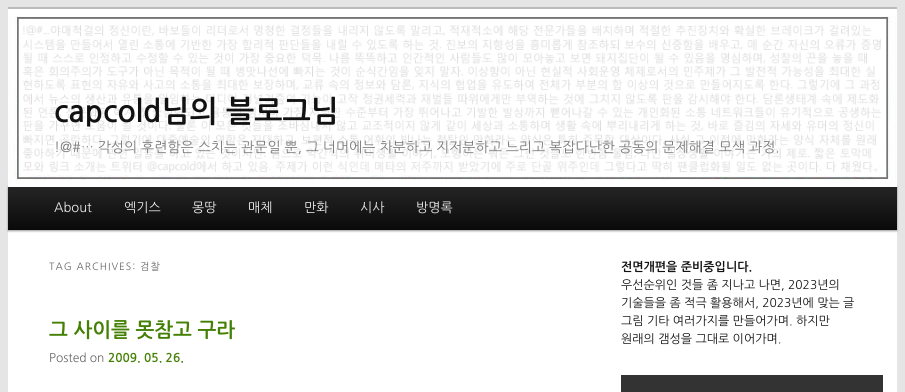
#include <cairo.h>
#include <math.h>
#include <stddef.h>


static void rgb(cairo_t *cr, int r, int g, int b)
{
	cairo_set_source_rgb(cr, r / 255.0, g / 255.0, b / 255.0);
}

static void face(cairo_t *cr, const char *family, double size, int italic, int bold)
{
	cairo_select_font_face(cr, family, italic ? CAIRO_FONT_SLANT_ITALIC : CAIRO_FONT_SLANT_NORMAL,
		bold ? CAIRO_FONT_WEIGHT_BOLD : CAIRO_FONT_WEIGHT_NORMAL);
	cairo_set_font_size(cr, size);
}

static void label(cairo_t *cr, double x, double y, const char *s)
{
	cairo_move_to(cr, x, y);
	cairo_show_text(cr, s);
}

static void tracked(cairo_t *cr, double x, double y, const char *s, double letter, double word)
{
	cairo_move_to(cr, x, y);
	while (*s) {
		char ch[5] = {0};
		int n = 0;
		do ch[n++] = *s++; while ((*s & 0xC0) == 0x80);
		cairo_show_text(cr, ch);
		cairo_rel_move_to(cr, letter + word * (*ch == ' '), 0);
	}
}

static void rect(cairo_t *cr, double x, double y, double w, double h)
{
	cairo_rectangle(cr, x, y, w, h);
	cairo_fill(cr);
}

static void rrect(cairo_t *cr, double x, double y, double w, double h, double r)
{
	cairo_new_sub_path(cr);
	cairo_arc(cr, x + w - r, y + h - r, r, 0, M_PI / 2);
	cairo_arc(cr, x + r, y + h - r, r, M_PI / 2, M_PI);
	cairo_arc(cr, x + r, y + r, r, M_PI, 1.5 * M_PI);
	cairo_arc(cr, x + w - r, y + r, r, 1.5 * M_PI, 2 * M_PI);
	cairo_close_path(cr);
}

static void soft_shadow(cairo_t *cr, double x, double y, double w, double h, double r, double blur, double alpha)
{
	cairo_push_group_with_content(cr, CAIRO_CONTENT_ALPHA);
	cairo_set_operator(cr, CAIRO_OPERATOR_SOURCE);
	for (int i = 15; i >= -15 && fmin(w, h) + blur * i / 3 > 0; i -= 2) {
		double e = blur * i / 6;
		cairo_set_source_rgba(cr, 0, 0, 0, alpha * erfc((i - 1) / 8.5) / 2);
		rrect(cr, x - e, y - e, w + 2 * e, h + 2 * e, fmax(0, fmin(r + e + blur * .6, fmin(w, h) / 2 + e)));
		cairo_fill(cr);
	}
	cairo_pattern_t *soft = cairo_pop_group(cr);
	cairo_mask(cr, soft);
	cairo_pattern_destroy(soft);
}

static void image(cairo_t *cr, const char *path, double x, double y, double w, double h)
{
	cairo_surface_t *image = cairo_image_surface_create_from_png(path);
	cairo_save(cr);
	cairo_set_source_surface(cr, image, x, y);
	cairo_rectangle(cr, x, y, w, h);
	cairo_fill(cr);
	cairo_restore(cr);
	cairo_surface_destroy(image);
}

static void draw(cairo_t *cr) {
	cairo_pattern_t *gradient;
	rgb(cr, 229, 229, 229);
	cairo_paint(cr);
	rgb(cr, 255, 255, 255);
	rect(cr, 8, 9, 889, 383);
	rgb(cr, 187, 187, 187);
	rect(cr, 8, 7, 889, 2);
	rgb(cr, 0, 0, 0);
	soft_shadow(cr, 8, 187, 889, 44, 0, 1, 0.4);
	image(cr, "image0.png", 8, 16, 889, 171);
	face(cr, "NanumGothic", 30, 0, 1);
	rgb(cr, 17, 17, 17);
	label(cr, 54, 122, "capcold님의 블로그님");
	face(cr, "NanumGothic", 14, 0, 0);
	rgb(cr, 122, 122, 122);
	label(cr, 54, 152, "!@#… 각성의 후련함은 스치는 관문일 뿐, 그 너머에는 차분하고 지저분하고 느리고 복잡다난한 공동의 문제해결 모색 과정.");
	gradient = cairo_pattern_create_linear(453, 186, 453, 230);
	cairo_pattern_add_color_stop_rgba(gradient, 0, 0.145, 0.145, 0.145, 1);
	cairo_pattern_add_color_stop_rgba(gradient, 1, 0.039, 0.039, 0.039, 1);
	cairo_set_source(cr, gradient);
	cairo_pattern_destroy(gradient);
	rect(cr, 8, 187, 889, 43);
	face(cr, "NanumGothic", 13, 0, 0);
	rgb(cr, 238, 238, 238);
	label(cr, 54, 212, "About");
	label(cr, 124, 212, "엑기스");
	label(cr, 192, 212, "몽땅");
	label(cr, 248, 212, "매체");
	label(cr, 304, 212, "만화");
	label(cr, 360, 212, "시사");
	label(cr, 416, 212, "방명록");
	face(cr, "NanumGothic", 10, 0, 0);
	rgb(cr, 102, 102, 102);
	tracked(cr, 49, 270, "TAG ARCHIVES: 검찰", 1, 0);
	face(cr, "NanumGothic", 20, 0, 1);
	rgb(cr, 68, 128, 4);
	label(cr, 49, 337, "그 사이를 못참고 구라");
	face(cr, "NanumGothic", 12, 0, 0);
	rgb(cr, 102, 102, 102);
	label(cr, 49, 362, "Posted on");
	face(cr, "NanumGothic", 12, 0, 1);
	rgb(cr, 68, 128, 4);
	label(cr, 108, 362, "2009. 05. 26.");
	rgb(cr, 17, 17, 17);
	label(cr, 621, 271, "전면개편을 준비중입니다.");
	face(cr, "NanumGothic", 12, 0, 0);
	label(cr, 621, 289, "우선순위인 것들 좀 지나고 나면, 2023년의");
	label(cr, 621, 307, "기술들을 좀 적극 활용해서, 2023년에 맞는 글");
	label(cr, 621, 325, "그림 기타 여러가지를 만들어가며. 하지만");
	label(cr, 621, 343, "원래의 갬성을 그대로 이어가며.");
	rgb(cr, 51, 51, 51);
	rect(cr, 621, 375, 262, 17);
}

int main(void) {
	cairo_surface_t *surface = cairo_image_surface_create(CAIRO_FORMAT_RGB24, 905, 392);
	cairo_t *cr = cairo_create(surface);
	cairo_font_options_t *options = cairo_font_options_create();
	cairo_font_options_set_hint_metrics(options, CAIRO_HINT_METRICS_OFF);
	cairo_font_options_set_hint_style(options, CAIRO_HINT_STYLE_NONE);
	cairo_set_font_options(cr, options);
	cairo_set_miter_limit(cr, 4);
	draw(cr);
	cairo_surface_write_to_png(surface, "render.png");
	cairo_font_options_destroy(options);
	cairo_destroy(cr);
	cairo_surface_destroy(surface);
	return 0;
}
